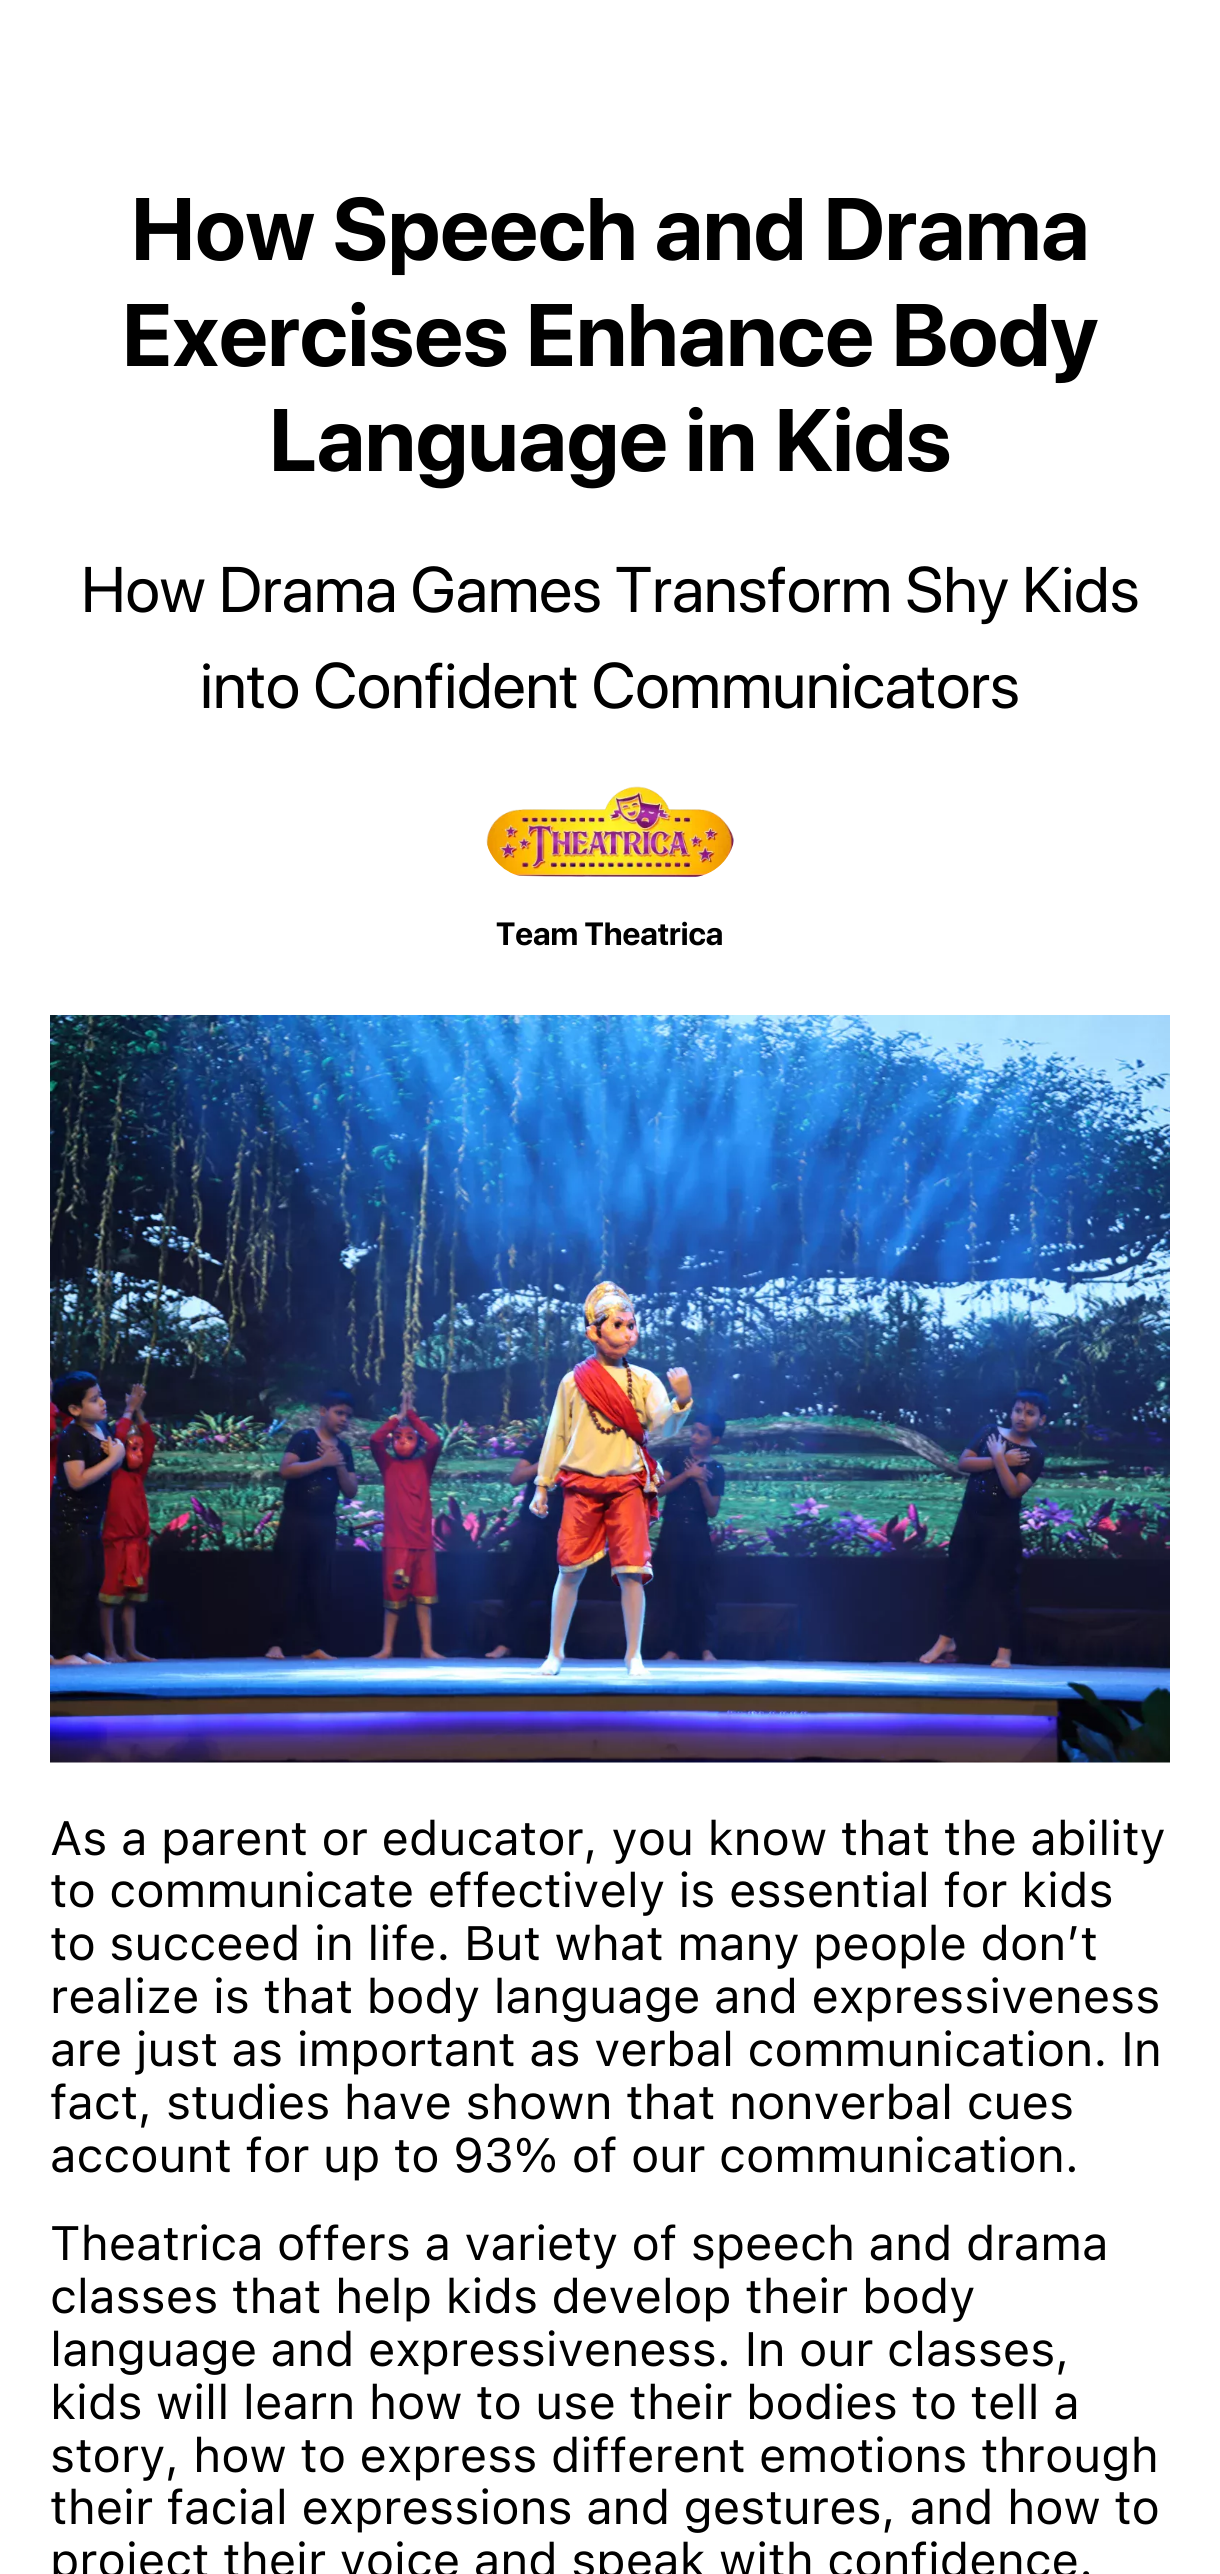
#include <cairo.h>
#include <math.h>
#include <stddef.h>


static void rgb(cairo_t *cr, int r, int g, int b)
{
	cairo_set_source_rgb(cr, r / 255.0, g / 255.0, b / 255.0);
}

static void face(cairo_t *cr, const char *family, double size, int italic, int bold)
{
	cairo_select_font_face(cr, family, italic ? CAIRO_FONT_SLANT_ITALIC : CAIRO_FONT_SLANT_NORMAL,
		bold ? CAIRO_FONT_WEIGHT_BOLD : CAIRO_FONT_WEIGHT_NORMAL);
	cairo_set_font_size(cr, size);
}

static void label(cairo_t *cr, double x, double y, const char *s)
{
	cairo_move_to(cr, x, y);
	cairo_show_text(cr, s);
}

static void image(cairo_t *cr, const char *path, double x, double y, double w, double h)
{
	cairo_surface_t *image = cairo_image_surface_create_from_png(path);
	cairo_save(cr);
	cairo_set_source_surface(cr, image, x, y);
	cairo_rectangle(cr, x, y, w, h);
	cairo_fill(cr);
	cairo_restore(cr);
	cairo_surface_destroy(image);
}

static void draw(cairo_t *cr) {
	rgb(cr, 255, 255, 255);
	cairo_paint(cr);
	face(cr, "SF Pro Display", 88, 0, 1);
	rgb(cr, 0, 0, 0);
	label(cr, 131, 260, "How Speech and Drama");
	label(cr, 122, 366, "Exercises Enhance Body");
	label(cr, 269, 471, "Language in Kids");
	face(cr, "SF Pro Display", 64, 0, 0);
	label(cr, 81, 612, "How Drama Games Transform Shy Kids");
	label(cr, 200, 708, "into Confident Communicators");
	image(cr, "image0.png", 486, 786, 248, 92);
	face(cr, "SF Pro Display", 32, 0, 1);
	label(cr, 496, 945, "Team Theatrica");
	image(cr, "image1.png", 50, 1015, 1120, 748);
	face(cr, "SF Pro Text", 48, 0, 0);
	label(cr, 50, 1855, "As a parent or educator, you know that the ability");
	label(cr, 50, 1907, "to communicate effectively is essential for kids");
	label(cr, 50, 1960, "to succeed in life. But what many people don’t");
	label(cr, 50, 2013, "realize is that body language and expressiveness");
	label(cr, 50, 2066, "are just as important as verbal communication. In");
	label(cr, 50, 2119, "fact, studies have shown that nonverbal cues");
	label(cr, 50, 2172, "account for up to 93% of our communication.");
	label(cr, 50, 2260, "Theatrica offers a variety of speech and drama");
	label(cr, 50, 2313, "classes that help kids develop their body");
	label(cr, 50, 2366, "language and expressiveness. In our classes,");
	label(cr, 50, 2419, "kids will learn how to use their bodies to tell a");
	label(cr, 50, 2472, "story, how to express different emotions through");
	label(cr, 50, 2524, "their facial expressions and gestures, and how to");
	label(cr, 50, 2577, "project their voice and speak with confidence.");
}

int main(void) {
	cairo_surface_t *surface = cairo_image_surface_create(CAIRO_FORMAT_RGB24, 1220, 2574);
	cairo_t *cr = cairo_create(surface);
	cairo_font_options_t *options = cairo_font_options_create();
	cairo_font_options_set_hint_metrics(options, CAIRO_HINT_METRICS_OFF);
	cairo_font_options_set_hint_style(options, CAIRO_HINT_STYLE_NONE);
	cairo_set_font_options(cr, options);
	cairo_set_miter_limit(cr, 4);
	draw(cr);
	cairo_surface_write_to_png(surface, "render.png");
	cairo_font_options_destroy(options);
	cairo_destroy(cr);
	cairo_surface_destroy(surface);
	return 0;
}
